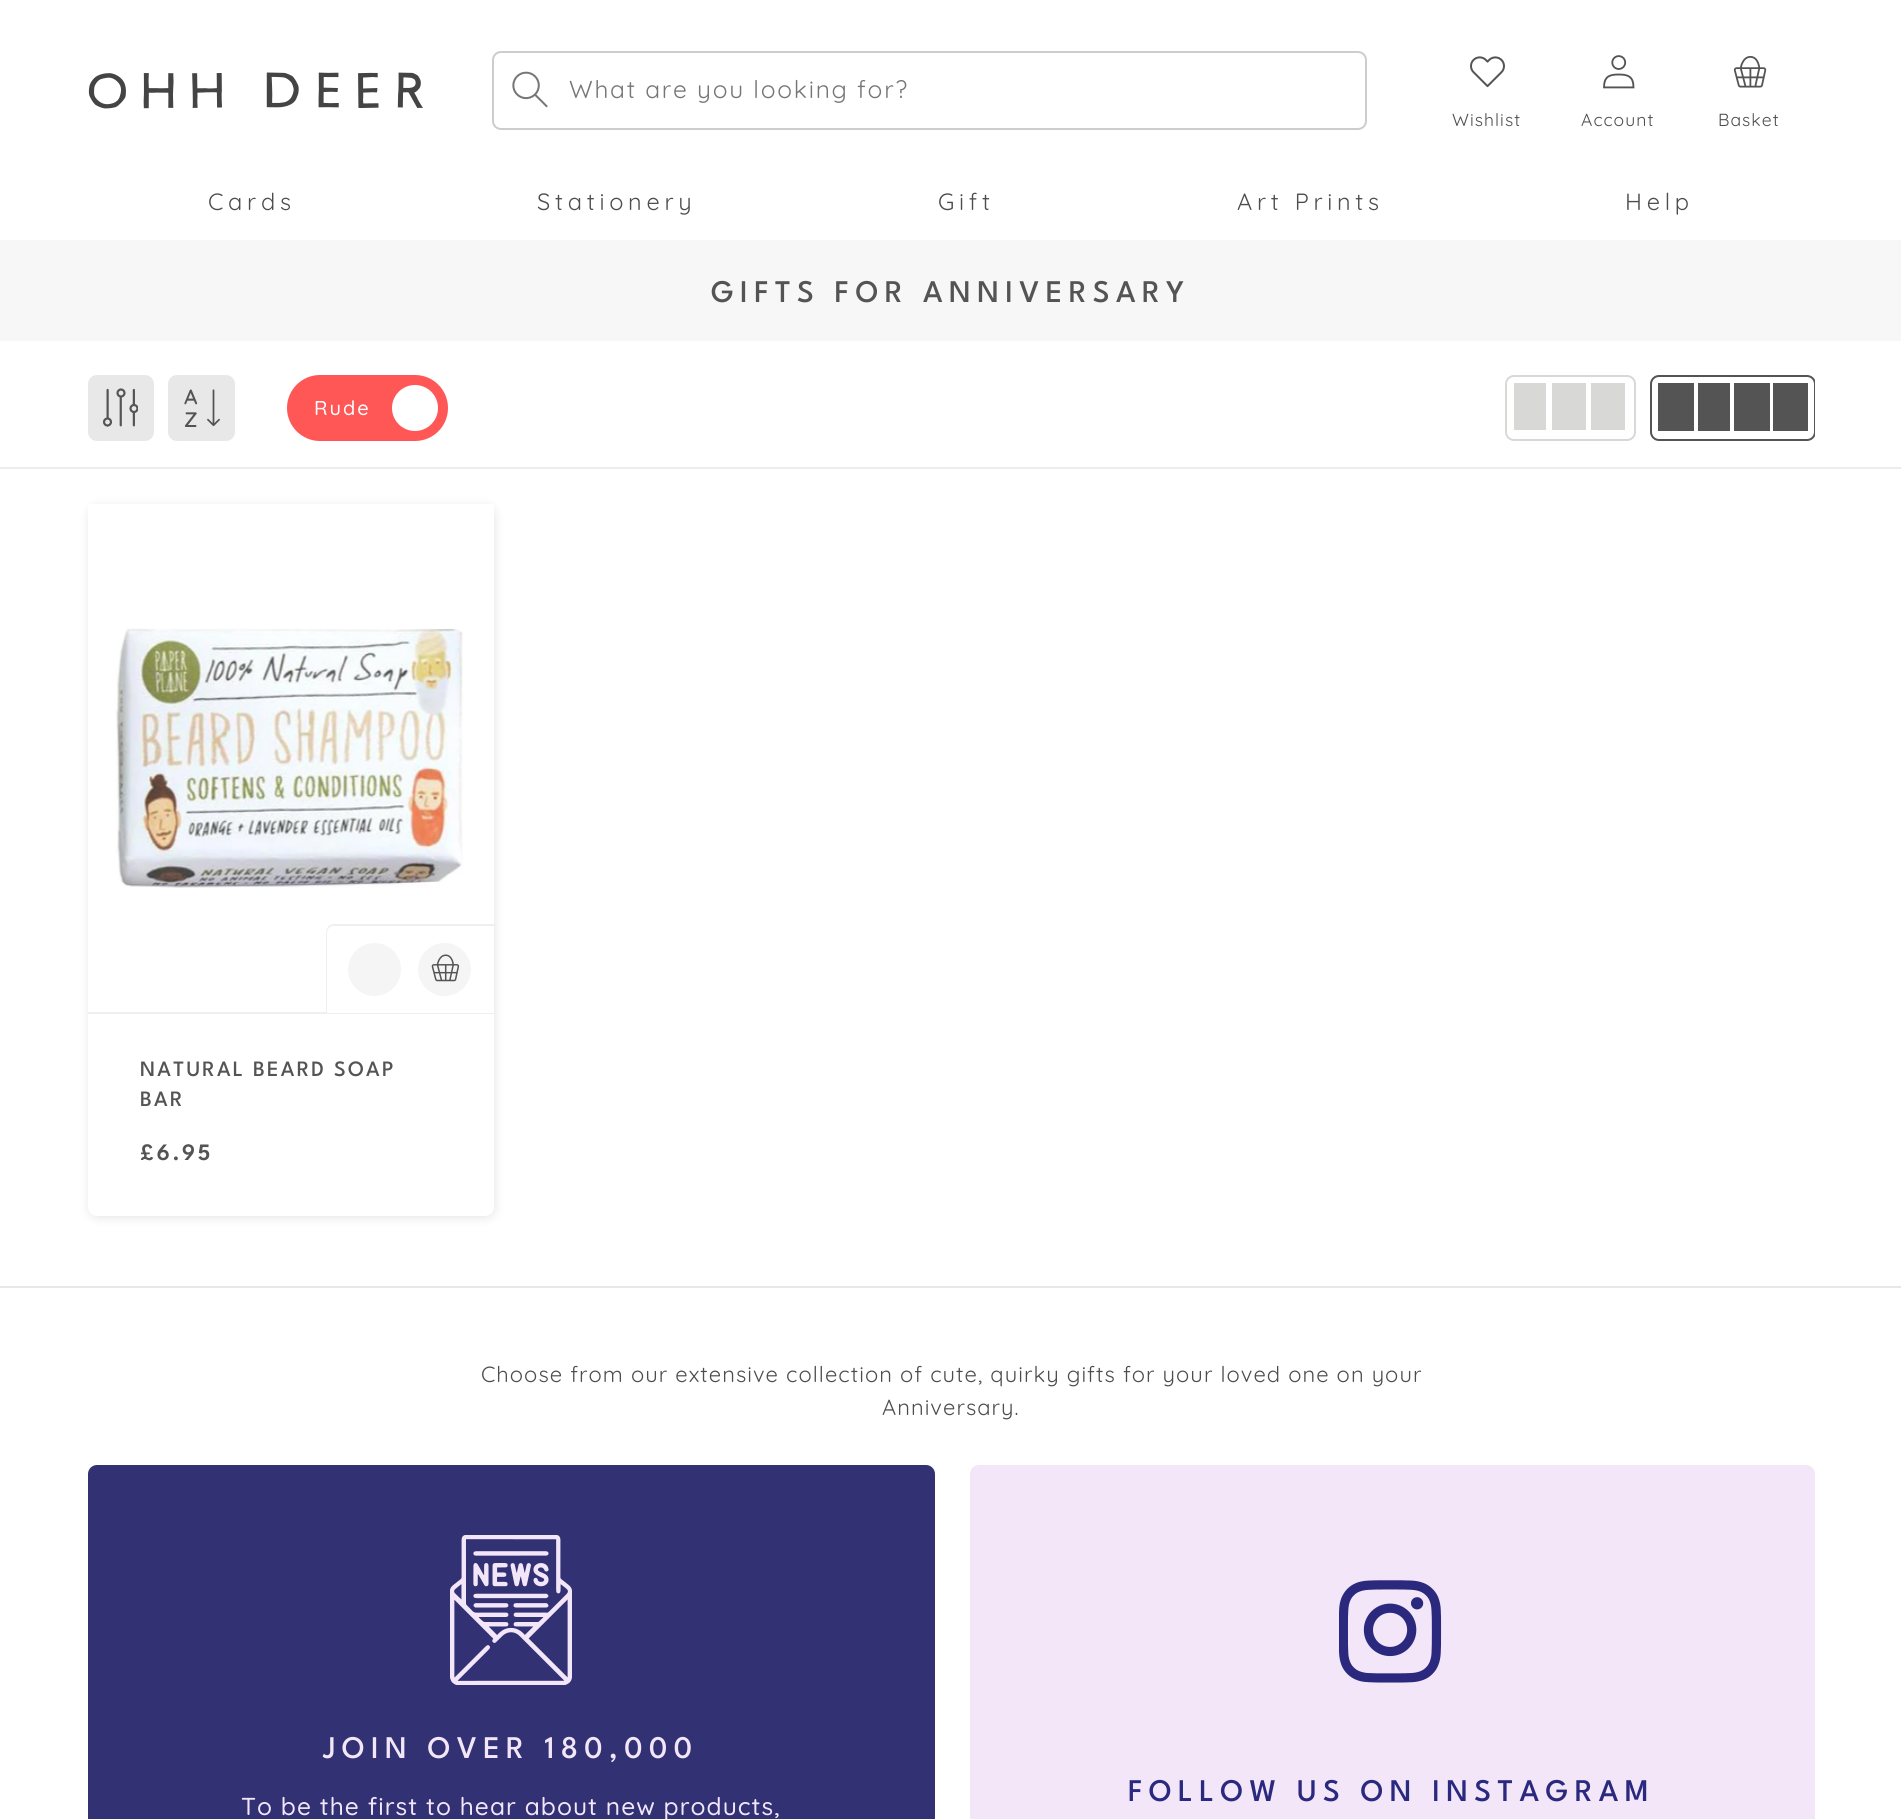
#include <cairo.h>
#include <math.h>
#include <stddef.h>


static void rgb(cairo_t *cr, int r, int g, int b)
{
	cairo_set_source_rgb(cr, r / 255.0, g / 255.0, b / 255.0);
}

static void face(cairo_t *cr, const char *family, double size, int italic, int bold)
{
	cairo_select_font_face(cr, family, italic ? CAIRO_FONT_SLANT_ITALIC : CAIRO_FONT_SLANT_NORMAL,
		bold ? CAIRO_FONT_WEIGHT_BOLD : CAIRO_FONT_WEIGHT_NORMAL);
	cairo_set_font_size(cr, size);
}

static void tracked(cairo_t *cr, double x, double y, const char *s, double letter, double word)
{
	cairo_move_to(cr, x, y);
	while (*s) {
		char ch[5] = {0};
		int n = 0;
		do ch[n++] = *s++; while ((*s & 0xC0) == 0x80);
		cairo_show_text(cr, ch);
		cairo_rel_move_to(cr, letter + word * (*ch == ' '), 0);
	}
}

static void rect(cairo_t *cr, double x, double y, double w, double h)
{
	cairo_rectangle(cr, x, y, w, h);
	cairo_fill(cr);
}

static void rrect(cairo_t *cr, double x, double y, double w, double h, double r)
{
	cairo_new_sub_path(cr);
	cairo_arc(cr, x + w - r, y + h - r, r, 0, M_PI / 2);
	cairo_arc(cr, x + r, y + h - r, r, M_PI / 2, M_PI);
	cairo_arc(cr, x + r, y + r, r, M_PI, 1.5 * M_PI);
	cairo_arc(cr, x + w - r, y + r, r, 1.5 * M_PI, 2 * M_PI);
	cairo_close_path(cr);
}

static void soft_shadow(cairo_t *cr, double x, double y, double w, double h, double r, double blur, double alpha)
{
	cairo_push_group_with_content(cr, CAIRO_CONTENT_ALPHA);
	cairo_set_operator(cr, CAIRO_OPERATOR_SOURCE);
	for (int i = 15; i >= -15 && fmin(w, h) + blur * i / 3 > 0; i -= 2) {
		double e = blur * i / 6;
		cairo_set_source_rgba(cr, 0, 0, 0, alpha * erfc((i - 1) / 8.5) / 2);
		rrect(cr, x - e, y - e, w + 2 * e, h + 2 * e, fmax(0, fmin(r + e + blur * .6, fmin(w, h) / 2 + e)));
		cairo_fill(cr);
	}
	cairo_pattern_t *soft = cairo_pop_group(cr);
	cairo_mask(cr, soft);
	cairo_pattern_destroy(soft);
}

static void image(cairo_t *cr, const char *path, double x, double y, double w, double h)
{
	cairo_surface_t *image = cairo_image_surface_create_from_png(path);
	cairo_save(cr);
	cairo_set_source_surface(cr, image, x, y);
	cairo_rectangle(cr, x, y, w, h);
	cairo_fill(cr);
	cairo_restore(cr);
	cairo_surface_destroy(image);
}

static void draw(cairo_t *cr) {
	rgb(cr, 255, 255, 255);
	cairo_paint(cr);
	image(cr, "image0.png", 88, 72, 335, 37);
	image(cr, "image1.png", 512, 71, 36, 37);
	rrect(cr, 493, 52, 873, 77, 8);
	rgb(cr, 205, 205, 205);
	cairo_stroke(cr);
	face(cr, "Quicksand", 24.5, 0, 0);
	rgb(cr, 118, 118, 118);
	tracked(cr, 569, 98, "What are you looking for?", 1.75, 0);
	image(cr, "image2.png", 1470, 56, 35, 32);
	face(cr, "Quicksand", 17.5, 0, 0);
	rgb(cr, 77, 77, 77);
	tracked(cr, 1452, 126, "Wishlist", 1.05, 0);
	image(cr, "image3.png", 1603, 55, 32, 34);
	tracked(cr, 1581, 126, "Account", 1.05, 0);
	image(cr, "image4.png", 1733, 56, 34, 32);
	tracked(cr, 1718, 126, "Basket", 1.05, 0);
	face(cr, "Quicksand", 23.5, 0, 0);
	tracked(cr, 208, 210, "Cards", 4.75, 0);
	tracked(cr, 537, 210, "Stationery", 4.75, 0);
	tracked(cr, 938, 210, "Gift", 4.75, 0);
	tracked(cr, 1237, 210, "Art Prints", 4.75, 0);
	tracked(cr, 1625, 210, "Help", 4.75, 0);
	rgb(cr, 247, 247, 247);
	rect(cr, 0, 240, 1901, 101);
	face(cr, "League Spartan Medium", 31.5, 0, 0);
	rgb(cr, 84, 84, 84);
	tracked(cr, 711, 302, "GIFTS FOR ANNIVERSARY", 6.3, 0);
	rgb(cr, 236, 236, 236);
	rect(cr, 0, 467, 1901, 2);
	rgb(cr, 232, 232, 232);
	rrect(cr, 88, 375, 66, 66, 9);
	cairo_fill(cr);
	image(cr, "image5.png", 103, 388, 35, 39);
	image(cr, "image6.png", 168, 375, 67, 66);
	rgb(cr, 255, 86, 86);
	rrect(cr, 287, 375, 161, 66, 33);
	cairo_fill(cr);
	face(cr, "Quicksand Medium", 20, 0, 0);
	rgb(cr, 255, 255, 255);
	tracked(cr, 314, 415, "Rude", 2, 0);
	cairo_new_path(cr);
	cairo_arc(cr, 415, 408, 23, 0, 2 * M_PI);
	cairo_fill(cr);
	rgb(cr, 216, 216, 215);
	rect(cr, 1591, 383, 34, 47);
	rect(cr, 1552, 383, 34, 47);
	rect(cr, 1514, 383, 32, 47);
	rrect(cr, 1506, 376, 129, 64, 8);
	cairo_stroke(cr);
	cairo_save(cr);
	cairo_rectangle(cr, 1650, 375, 165, 66);
	cairo_clip(cr);
	rrect(cr, 1651, 376, 164, 64, 8);
	rgb(cr, 84, 84, 84);
	cairo_stroke(cr);
	cairo_restore(cr);
	rgb(cr, 84, 84, 84);
	rect(cr, 1773, 383, 35, 48);
	rect(cr, 1734, 383, 36, 48);
	rect(cr, 1698, 383, 32, 48);
	rect(cr, 1658, 383, 36, 48);
	rgb(cr, 0, 0, 0);
	soft_shadow(cr, 89, 506, 406, 712, 9, 5, 0.1);
	rgb(cr, 255, 255, 255);
	rrect(cr, 88, 504, 406, 712, 9);
	cairo_fill(cr);
	rect(cr, 88, 504, 406, 7);
	image(cr, "image7.png", 115, 628, 348, 260);
	rgb(cr, 239, 239, 239);
	rect(cr, 88, 1012, 406, 2);
	rgb(cr, 255, 255, 255);
	cairo_new_path(cr);
	cairo_move_to(cr, 334, 926);
	cairo_line_to(cr, 494, 926);
	cairo_line_to(cr, 494, 1013);
	cairo_line_to(cr, 327, 1013);
	cairo_line_to(cr, 327, 933);
	cairo_curve_to(cr, 327, 929, 330, 926, 334, 926);
	cairo_close_path(cr);
	cairo_fill(cr);
	rgb(cr, 239, 239, 239);
	cairo_set_fill_rule(cr, CAIRO_FILL_RULE_EVEN_ODD);
	cairo_new_path(cr);
	cairo_move_to(cr, 334, 924);
	cairo_line_to(cr, 495, 924);
	cairo_line_to(cr, 495, 1013);
	cairo_line_to(cr, 326, 1013);
	cairo_line_to(cr, 326, 933);
	cairo_curve_to(cr, 326, 928, 329, 924, 334, 924);
	cairo_close_path(cr);
	cairo_move_to(cr, 334, 926);
	cairo_line_to(cr, 494, 926);
	cairo_line_to(cr, 494, 1013);
	cairo_line_to(cr, 327, 1013);
	cairo_line_to(cr, 327, 933);
	cairo_curve_to(cr, 327, 929, 330, 926, 334, 926);
	cairo_close_path(cr);
	cairo_fill(cr);
	rgb(cr, 245, 245, 245);
	cairo_arc(cr, 374.5, 969.5, 26.5, 0, 2 * M_PI);
	cairo_fill(cr);
	cairo_arc(cr, 444.5, 969.5, 26.5, 0, 2 * M_PI);
	cairo_fill(cr);
	image(cr, "image8.png", 431, 954, 29, 28);
	face(cr, "League Spartan Medium", 21.9, 0, 0);
	rgb(cr, 84, 84, 84);
	tracked(cr, 140, 1076, "NATURAL BEARD SOAP", 2.2, 0);
	tracked(cr, 140, 1106, "BAR", 2.2, 0);
	face(cr, "League Spartan SemiBold", 23.5, 0, 0);
	tracked(cr, 140, 1160, "£6.95", 2.5, 0);
	rgb(cr, 229, 231, 235);
	rect(cr, 0, 1286, 1901, 2);
	face(cr, "Quicksand", 21.9, 0, 0);
	rgb(cr, 77, 77, 77);
	tracked(cr, 481, 1382, "Choose from our extensive collection of cute, quirky gifts for your loved one on your", 1.05, 0);
	tracked(cr, 882, 1415, "Anniversary.", 1.05, 0);
	rgb(cr, 50, 49, 116);
	rrect(cr, 88, 1465, 847, 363, 9);
	cairo_fill(cr);
	image(cr, "image9.png", 450, 1535, 122, 150);
	face(cr, "League Spartan Medium", 31.5, 0, 0);
	rgb(cr, 243, 230, 249);
	tracked(cr, 323, 1758, "JOIN OVER 180,000", 6.3, 0);
	face(cr, "Quicksand Medium", 24.5, 0, 0);
	tracked(cr, 241, 1815, "To be the first to hear about new products,", 1.05, 0);
	rrect(cr, 970, 1465, 845, 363, 9);
	cairo_fill(cr);
	image(cr, "image10.png", 1339, 1580, 103, 103);
	face(cr, "League Spartan Medium", 31.5, 0, 0);
	rgb(cr, 42, 41, 126);
	tracked(cr, 1128, 1801, "FOLLOW US ON INSTAGRAM", 6.3, 0);
}

int main(void) {
	cairo_surface_t *surface = cairo_image_surface_create(CAIRO_FORMAT_RGB24, 1901, 1819);
	cairo_t *cr = cairo_create(surface);
	cairo_font_options_t *options = cairo_font_options_create();
	cairo_font_options_set_hint_metrics(options, CAIRO_HINT_METRICS_OFF);
	cairo_font_options_set_hint_style(options, CAIRO_HINT_STYLE_NONE);
	cairo_set_font_options(cr, options);
	cairo_set_miter_limit(cr, 4);
	draw(cr);
	cairo_surface_write_to_png(surface, "render.png");
	cairo_font_options_destroy(options);
	cairo_destroy(cr);
	cairo_surface_destroy(surface);
	return 0;
}
